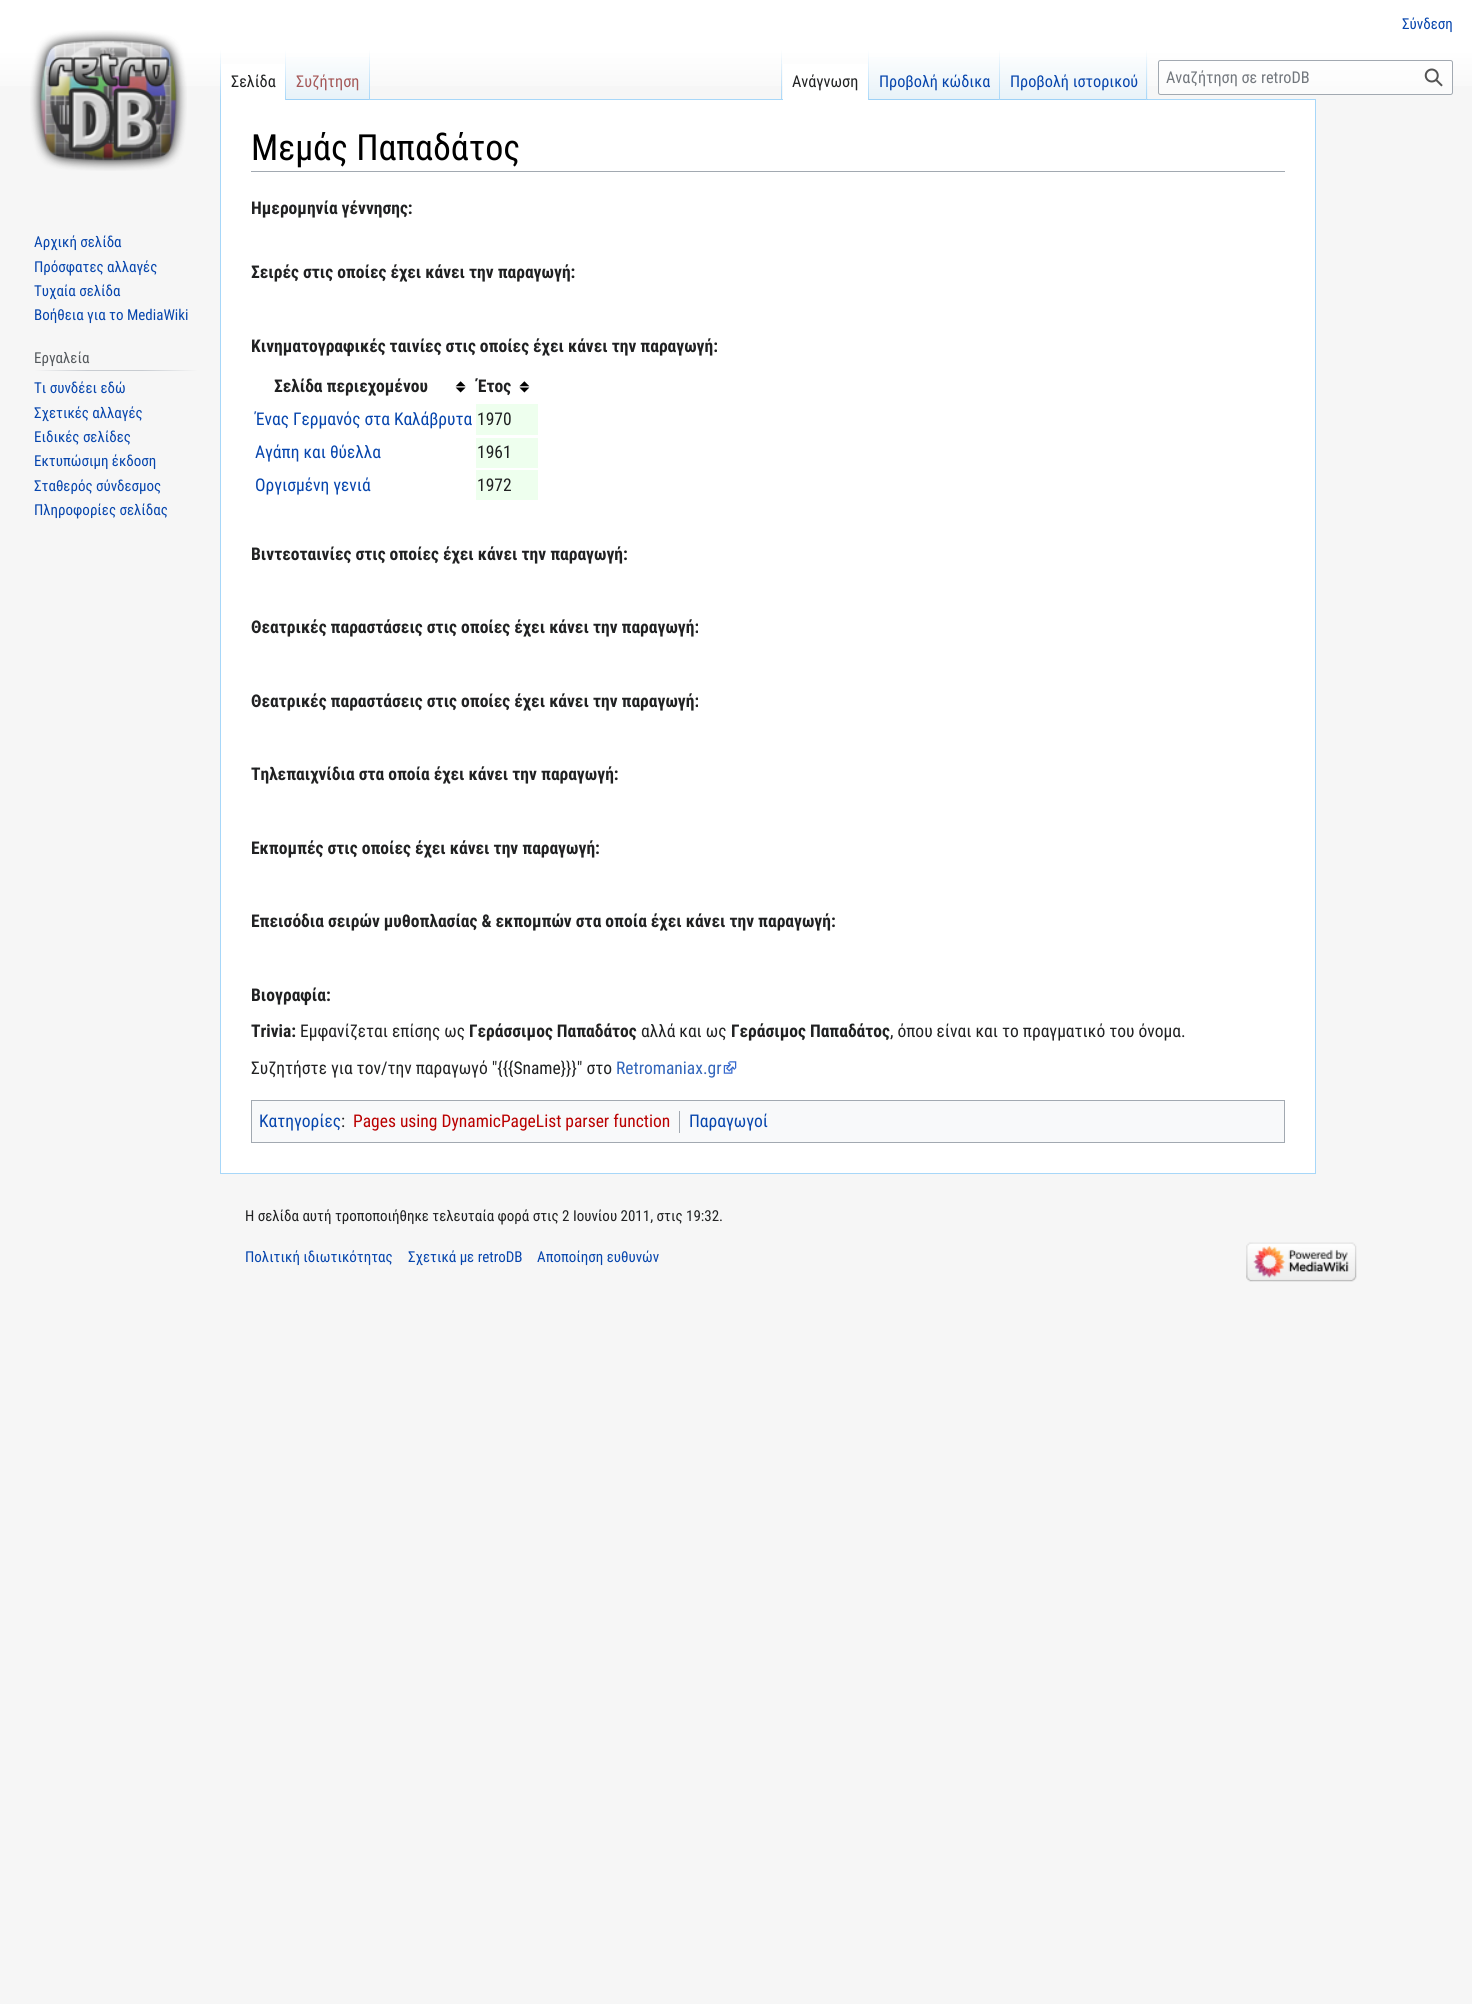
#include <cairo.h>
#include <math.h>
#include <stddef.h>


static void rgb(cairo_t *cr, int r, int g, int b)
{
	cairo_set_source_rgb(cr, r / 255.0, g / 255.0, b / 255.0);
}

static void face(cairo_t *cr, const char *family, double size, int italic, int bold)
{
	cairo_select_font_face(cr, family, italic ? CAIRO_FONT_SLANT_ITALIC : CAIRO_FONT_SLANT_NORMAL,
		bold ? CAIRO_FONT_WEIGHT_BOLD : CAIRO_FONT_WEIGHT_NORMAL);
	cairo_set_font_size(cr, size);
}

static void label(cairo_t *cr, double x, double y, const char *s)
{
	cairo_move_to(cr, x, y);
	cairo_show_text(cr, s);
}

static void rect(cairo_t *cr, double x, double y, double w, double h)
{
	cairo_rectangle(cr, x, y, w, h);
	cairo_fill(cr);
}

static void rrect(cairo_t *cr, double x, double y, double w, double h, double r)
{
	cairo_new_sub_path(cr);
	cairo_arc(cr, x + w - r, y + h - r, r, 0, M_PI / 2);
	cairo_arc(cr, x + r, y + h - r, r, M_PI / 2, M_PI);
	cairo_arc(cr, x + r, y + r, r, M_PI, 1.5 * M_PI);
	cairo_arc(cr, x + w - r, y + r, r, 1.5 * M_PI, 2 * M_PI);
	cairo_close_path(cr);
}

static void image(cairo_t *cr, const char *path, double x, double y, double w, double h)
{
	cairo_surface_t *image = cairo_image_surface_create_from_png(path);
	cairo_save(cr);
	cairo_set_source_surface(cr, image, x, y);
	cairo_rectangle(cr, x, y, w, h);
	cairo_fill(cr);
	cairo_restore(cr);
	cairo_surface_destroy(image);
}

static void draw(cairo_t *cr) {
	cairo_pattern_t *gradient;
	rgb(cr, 246, 246, 246);
	cairo_paint(cr);
	gradient = cairo_pattern_create_linear(736, 0, 736, 100);
	cairo_pattern_add_color_stop_rgba(gradient, 0.5, 1, 1, 1, 1);
	cairo_pattern_add_color_stop_rgba(gradient, 1, 0.965, 0.965, 0.965, 1);
	cairo_set_source(cr, gradient);
	cairo_pattern_destroy(gradient);
	rect(cr, 0, 0, 1472, 86);
	face(cr, "Roboto Condensed", 15, 0, 0);
	rgb(cr, 6, 69, 173);
	label(cr, 1402, 29, "Σύνδεση");
	rgb(cr, 255, 255, 255);
	cairo_rectangle(cr, 220.5, 99.5, 1095, 1074);
	cairo_fill_preserve(cr);
	rgb(cr, 167, 215, 249);
	cairo_set_line_width(cr, 1);
	cairo_stroke(cr);
	gradient = cairo_pattern_create_linear(221, 50, 221, 100);
	cairo_pattern_add_color_stop_rgba(gradient, 0, 0.655, 0.843, 0.976, 0);
	cairo_pattern_add_color_stop_rgba(gradient, 1, 0.655, 0.843, 0.976, 1);
	cairo_set_source(cr, gradient);
	cairo_pattern_destroy(gradient);
	rect(cr, 220, 50, 1, 50);
	rgb(cr, 255, 255, 255);
	rect(cr, 221, 64, 64, 36);
	gradient = cairo_pattern_create_linear(286, 50, 286, 100);
	cairo_pattern_add_color_stop_rgba(gradient, 0, 1, 1, 1, 1);
	cairo_pattern_add_color_stop_rgba(gradient, 1, 0.655, 0.843, 0.976, 1);
	cairo_set_source(cr, gradient);
	cairo_pattern_destroy(gradient);
	rect(cr, 285, 50, 1, 50);
	face(cr, "Roboto Condensed", 16.25, 0, 0);
	rgb(cr, 32, 33, 34);
	label(cr, 231, 87, "Σελίδα");
	gradient = cairo_pattern_create_linear(328, 100, 328, 50);
	cairo_pattern_add_color_stop_rgba(gradient, 0, 0.467, 0.757, 0.965, 1);
	cairo_pattern_add_color_stop_rgba(gradient, 0.03, 0.91, 0.949, 0.973, 1);
	cairo_pattern_add_color_stop_rgba(gradient, 1, 1, 1, 1, 1);
	cairo_set_source(cr, gradient);
	cairo_pattern_destroy(gradient);
	rect(cr, 286, 57, 84, 43);
	gradient = cairo_pattern_create_linear(369, 50, 369, 100);
	cairo_pattern_add_color_stop_rgba(gradient, 0, 0.655, 0.843, 0.976, 0);
	cairo_pattern_add_color_stop_rgba(gradient, 1, 0.655, 0.843, 0.976, 1);
	cairo_set_source(cr, gradient);
	cairo_pattern_destroy(gradient);
	rect(cr, 369, 50, 1, 50);
	rgb(cr, 165, 88, 88);
	label(cr, 296, 87, "Συζήτηση");
	gradient = cairo_pattern_create_linear(782, 50, 782, 100);
	cairo_pattern_add_color_stop_rgba(gradient, 0, 0.655, 0.843, 0.976, 0);
	cairo_pattern_add_color_stop_rgba(gradient, 1, 0.655, 0.843, 0.976, 1);
	cairo_set_source(cr, gradient);
	cairo_pattern_destroy(gradient);
	rect(cr, 781, 50, 1, 50);
	rgb(cr, 255, 255, 255);
	rect(cr, 783, 64, 85, 36);
	gradient = cairo_pattern_create_linear(868, 50, 868, 100);
	cairo_pattern_add_color_stop_rgba(gradient, 0, 1, 1, 1, 1);
	cairo_pattern_add_color_stop_rgba(gradient, 1, 0.655, 0.843, 0.976, 1);
	cairo_set_source(cr, gradient);
	cairo_pattern_destroy(gradient);
	rect(cr, 868, 50, 1, 50);
	rgb(cr, 32, 33, 34);
	label(cr, 792, 87, "Ανάγνωση");
	gradient = cairo_pattern_create_linear(934, 100, 934, 50);
	cairo_pattern_add_color_stop_rgba(gradient, 0, 0.467, 0.757, 0.965, 1);
	cairo_pattern_add_color_stop_rgba(gradient, 0.03, 0.91, 0.949, 0.973, 1);
	cairo_pattern_add_color_stop_rgba(gradient, 1, 1, 1, 1, 1);
	cairo_set_source(cr, gradient);
	cairo_pattern_destroy(gradient);
	rect(cr, 869, 57, 131, 43);
	gradient = cairo_pattern_create_linear(999, 50, 999, 100);
	cairo_pattern_add_color_stop_rgba(gradient, 0, 0.655, 0.843, 0.976, 0);
	cairo_pattern_add_color_stop_rgba(gradient, 1, 0.655, 0.843, 0.976, 1);
	cairo_set_source(cr, gradient);
	cairo_pattern_destroy(gradient);
	rect(cr, 999, 50, 1, 50);
	rgb(cr, 6, 69, 173);
	label(cr, 879, 87, "Προβολή κώδικα");
	gradient = cairo_pattern_create_linear(1074, 100, 1074, 50);
	cairo_pattern_add_color_stop_rgba(gradient, 0, 0.467, 0.757, 0.965, 1);
	cairo_pattern_add_color_stop_rgba(gradient, 0.03, 0.91, 0.949, 0.973, 1);
	cairo_pattern_add_color_stop_rgba(gradient, 1, 1, 1, 1, 1);
	cairo_set_source(cr, gradient);
	cairo_pattern_destroy(gradient);
	rect(cr, 1000, 57, 148, 43);
	gradient = cairo_pattern_create_linear(1147, 50, 1147, 100);
	cairo_pattern_add_color_stop_rgba(gradient, 0, 0.655, 0.843, 0.976, 0);
	cairo_pattern_add_color_stop_rgba(gradient, 1, 0.655, 0.843, 0.976, 1);
	cairo_set_source(cr, gradient);
	cairo_pattern_destroy(gradient);
	rect(cr, 1146, 50, 1, 50);
	rgb(cr, 6, 69, 173);
	label(cr, 1010, 87, "Προβολή ιστορικού");
	cairo_set_source_rgba(cr, 1, 1, 1, 0.5);
	rrect(cr, 1158.5, 60.5, 294, 34, 2);
	cairo_fill_preserve(cr);
	rgb(cr, 162, 169, 177);
	cairo_stroke(cr);
	rgb(cr, 114, 119, 125);
	label(cr, 1166, 83, "Αναζήτηση σε retroDB");
	image(cr, "image0.png", 1424, 68, 19, 19);
	image(cr, "image1.png", 30, 30, 157, 141);
	face(cr, "Roboto Condensed", 15, 0, 0);
	rgb(cr, 6, 69, 173);
	label(cr, 34, 247, "Αρχική σελίδα");
	label(cr, 34, 272, "Πρόσφατες αλλαγές");
	label(cr, 34, 296, "Τυχαία σελίδα");
	label(cr, 34, 320, "Βοήθεια για το MediaWiki");
	gradient = cairo_pattern_create_linear(34, 371, 198, 371);
	cairo_pattern_add_color_stop_rgba(gradient, 0, 0.965, 0.965, 0.965, 1);
	cairo_pattern_add_color_stop_rgba(gradient, 0.33, 0.784, 0.8, 0.82, 1);
	cairo_pattern_add_color_stop_rgba(gradient, 0.66, 0.784, 0.8, 0.82, 1);
	cairo_pattern_add_color_stop_rgba(gradient, 1, 0.965, 0.965, 0.965, 1);
	cairo_set_source(cr, gradient);
	cairo_pattern_destroy(gradient);
	rect(cr, 34, 370, 164, 1);
	rgb(cr, 84, 89, 93);
	label(cr, 34, 363, "Εργαλεία");
	rgb(cr, 6, 69, 173);
	label(cr, 34, 393, "Τι συνδέει εδώ");
	label(cr, 34, 418, "Σχετικές αλλαγές");
	label(cr, 34, 442, "Ειδικές σελίδες");
	label(cr, 34, 466, "Εκτυπώσιμη έκδοση");
	label(cr, 34, 491, "Σταθερός σύνδεσμος");
	label(cr, 34, 515, "Πληροφορίες σελίδας");
	rgb(cr, 162, 169, 177);
	rect(cr, 251, 171, 1034, 1);
	face(cr, "Roboto Condensed", 36, 0, 0);
	rgb(cr, 0, 0, 0);
	label(cr, 251, 160, "Μεμάς Παπαδάτος");
	face(cr, "Roboto Condensed", 17.5, 0, 1);
	rgb(cr, 32, 33, 34);
	label(cr, 251, 214, "Ημερομηνία γέννησης:");
	label(cr, 251, 278, "Σειρές στις οποίες έχει κάνει την παραγωγή:");
	label(cr, 251, 352, "Κινηματογραφικές ταινίες στις οποίες έχει κάνει την παραγωγή:");
	image(cr, "image2.png", 455, 381, 11, 12);
	label(cr, 274, 392, "Σελίδα περιεχομένου");
	image(cr, "image3.png", 519, 381, 11, 12);
	label(cr, 477, 392, "Έτος");
	face(cr, "Roboto Condensed", 17.5, 0, 0);
	rgb(cr, 6, 69, 173);
	label(cr, 255, 425, "Ένας Γερμανός στα Καλάβρυτα");
	rgb(cr, 238, 255, 238);
	rect(cr, 476, 404, 62, 31);
	rgb(cr, 32, 33, 34);
	label(cr, 477, 425, "1970");
	rgb(cr, 6, 69, 173);
	label(cr, 255, 458, "Αγάπη και θύελλα");
	rgb(cr, 238, 255, 238);
	rect(cr, 476, 438, 62, 30);
	rgb(cr, 32, 33, 34);
	label(cr, 477, 458, "1961");
	rgb(cr, 6, 69, 173);
	label(cr, 255, 491, "Οργισμένη γενιά");
	rgb(cr, 238, 255, 238);
	rect(cr, 476, 470, 62, 30);
	rgb(cr, 32, 33, 34);
	label(cr, 477, 491, "1972");
	face(cr, "Roboto Condensed", 17.5, 0, 1);
	label(cr, 251, 560, "Βιντεοταινίες στις οποίες έχει κάνει την παραγωγή:");
	label(cr, 251, 633, "Θεατρικές παραστάσεις στις οποίες έχει κάνει την παραγωγή:");
	label(cr, 251, 707, "Θεατρικές παραστάσεις στις οποίες έχει κάνει την παραγωγή:");
	label(cr, 251, 780, "Τηλεπαιχνίδια στα οποία έχει κάνει την παραγωγή:");
	label(cr, 251, 854, "Εκπομπές στις οποίες έχει κάνει την παραγωγή:");
	label(cr, 251, 927, "Επεισόδια σειρών μυθοπλασίας & εκπομπών στα οποία έχει κάνει την παραγωγή:");
	label(cr, 251, 1001, "Βιογραφία:");
	label(cr, 251, 1037, "Trivia:");
	face(cr, "Roboto Condensed", 17.5, 0, 0);
	label(cr, 300, 1037, "Εμφανίζεται επίσης ως");
	face(cr, "Roboto Condensed", 17.5, 0, 1);
	label(cr, 469, 1037, "Γεράσσιμος Παπαδάτος");
	face(cr, "Roboto Condensed", 17.5, 0, 0);
	label(cr, 641, 1037, "αλλά και ως");
	face(cr, "Roboto Condensed", 17.5, 0, 1);
	label(cr, 731, 1037, "Γεράσιμος Παπαδάτος");
	face(cr, "Roboto Condensed", 17.5, 0, 0);
	label(cr, 890, 1037, ", όπου είναι και το πραγματικό του όνομα.");
	label(cr, 251, 1074, "Συζητήστε για τον/την παραγωγό \"{{{Sname}}}\" στο");
	rgb(cr, 51, 102, 187);
	label(cr, 616, 1074, "Retromaniax.gr");
	image(cr, "image4.png", 723, 1061, 14, 13);
	rgb(cr, 248, 249, 250);
	cairo_rectangle(cr, 251.5, 1100.5, 1033, 42);
	cairo_fill_preserve(cr);
	rgb(cr, 162, 169, 177);
	cairo_stroke(cr);
	rgb(cr, 6, 69, 173);
	label(cr, 259, 1127, "Κατηγορίες");
	rgb(cr, 32, 33, 34);
	label(cr, 341, 1127, ":");
	rgb(cr, 186, 0, 0);
	label(cr, 353, 1127, "Pages using DynamicPageList parser function");
	rgb(cr, 162, 169, 177);
	rect(cr, 679, 1111, 1, 22);
	rgb(cr, 6, 69, 173);
	label(cr, 689, 1127, "Παραγωγοί");
	face(cr, "Roboto Condensed", 15, 0, 0);
	rgb(cr, 32, 33, 34);
	label(cr, 245, 1221, "Η σελίδα αυτή τροποποιήθηκε τελευταία φορά στις 2 Ιουνίου 2011, στις 19:32.");
	rgb(cr, 6, 69, 173);
	label(cr, 245, 1262, "Πολιτική ιδιωτικότητας");
	label(cr, 408, 1262, "Σχετικά με retroDB");
	label(cr, 537, 1262, "Αποποίηση ευθυνών");
	image(cr, "image5.png", 1246, 1242, 111, 40);
}

int main(void) {
	cairo_surface_t *surface = cairo_image_surface_create(CAIRO_FORMAT_RGB24, 1472, 2004);
	cairo_t *cr = cairo_create(surface);
	cairo_font_options_t *options = cairo_font_options_create();
	cairo_font_options_set_hint_metrics(options, CAIRO_HINT_METRICS_OFF);
	cairo_font_options_set_hint_style(options, CAIRO_HINT_STYLE_NONE);
	cairo_set_font_options(cr, options);
	cairo_set_miter_limit(cr, 4);
	draw(cr);
	cairo_surface_write_to_png(surface, "render.png");
	cairo_font_options_destroy(options);
	cairo_destroy(cr);
	cairo_surface_destroy(surface);
	return 0;
}
